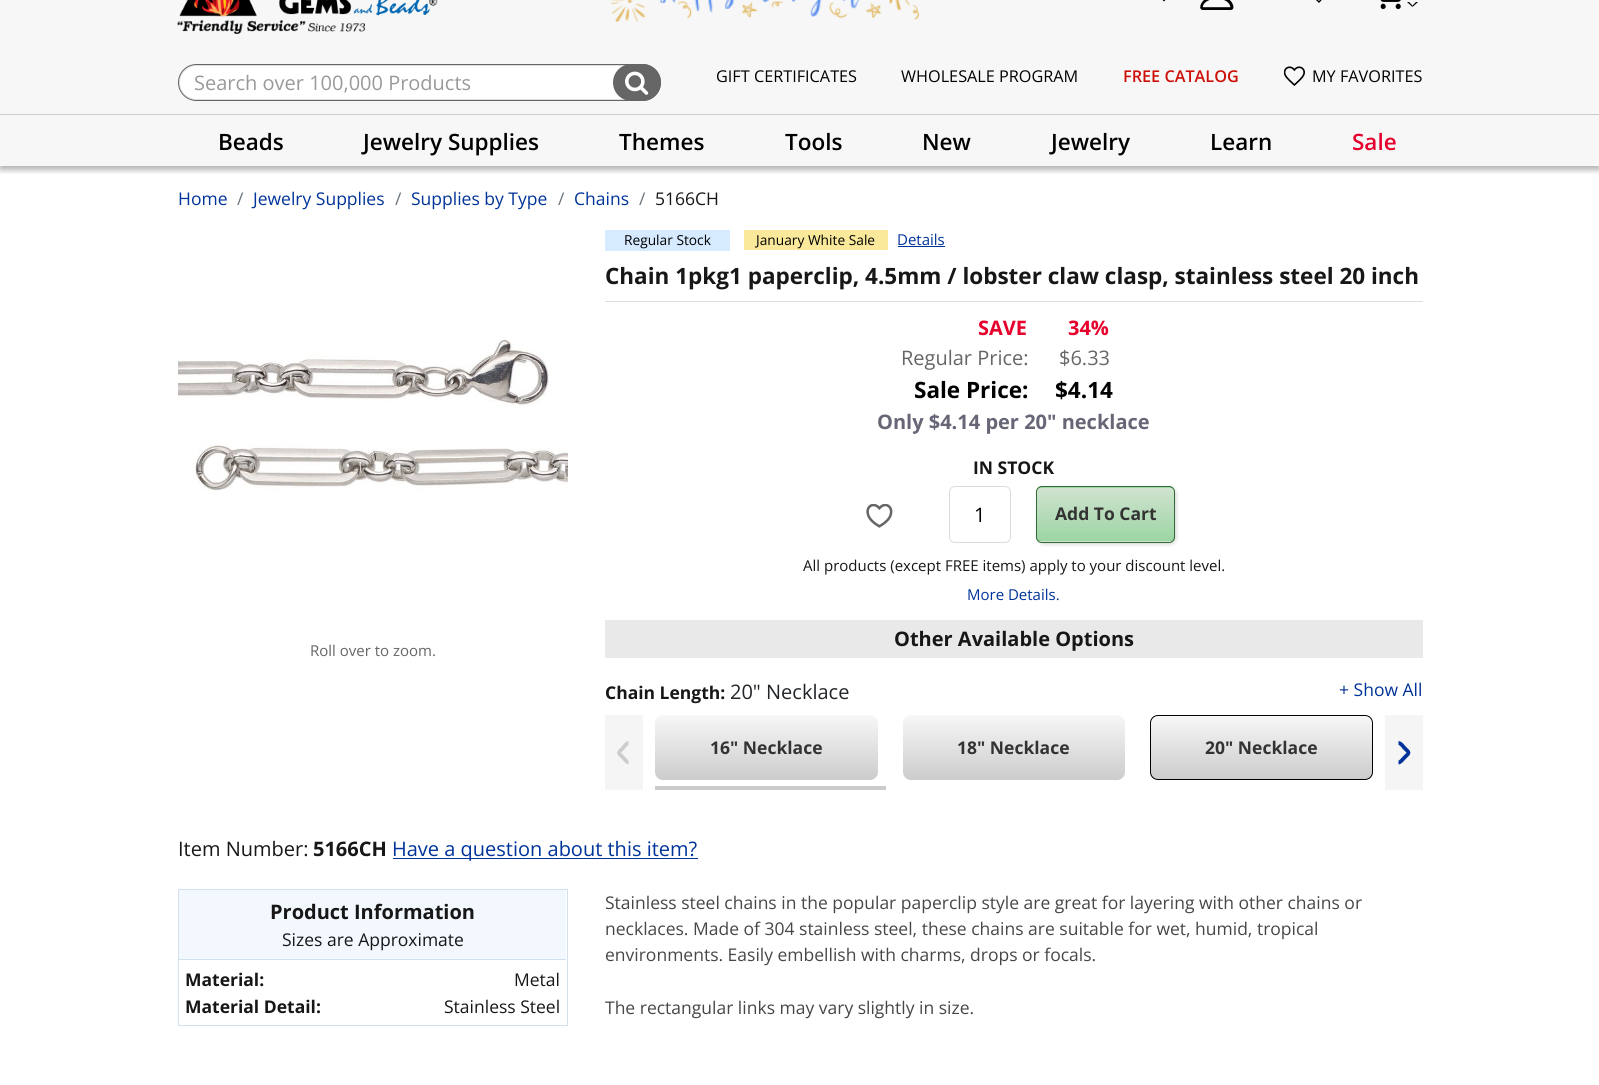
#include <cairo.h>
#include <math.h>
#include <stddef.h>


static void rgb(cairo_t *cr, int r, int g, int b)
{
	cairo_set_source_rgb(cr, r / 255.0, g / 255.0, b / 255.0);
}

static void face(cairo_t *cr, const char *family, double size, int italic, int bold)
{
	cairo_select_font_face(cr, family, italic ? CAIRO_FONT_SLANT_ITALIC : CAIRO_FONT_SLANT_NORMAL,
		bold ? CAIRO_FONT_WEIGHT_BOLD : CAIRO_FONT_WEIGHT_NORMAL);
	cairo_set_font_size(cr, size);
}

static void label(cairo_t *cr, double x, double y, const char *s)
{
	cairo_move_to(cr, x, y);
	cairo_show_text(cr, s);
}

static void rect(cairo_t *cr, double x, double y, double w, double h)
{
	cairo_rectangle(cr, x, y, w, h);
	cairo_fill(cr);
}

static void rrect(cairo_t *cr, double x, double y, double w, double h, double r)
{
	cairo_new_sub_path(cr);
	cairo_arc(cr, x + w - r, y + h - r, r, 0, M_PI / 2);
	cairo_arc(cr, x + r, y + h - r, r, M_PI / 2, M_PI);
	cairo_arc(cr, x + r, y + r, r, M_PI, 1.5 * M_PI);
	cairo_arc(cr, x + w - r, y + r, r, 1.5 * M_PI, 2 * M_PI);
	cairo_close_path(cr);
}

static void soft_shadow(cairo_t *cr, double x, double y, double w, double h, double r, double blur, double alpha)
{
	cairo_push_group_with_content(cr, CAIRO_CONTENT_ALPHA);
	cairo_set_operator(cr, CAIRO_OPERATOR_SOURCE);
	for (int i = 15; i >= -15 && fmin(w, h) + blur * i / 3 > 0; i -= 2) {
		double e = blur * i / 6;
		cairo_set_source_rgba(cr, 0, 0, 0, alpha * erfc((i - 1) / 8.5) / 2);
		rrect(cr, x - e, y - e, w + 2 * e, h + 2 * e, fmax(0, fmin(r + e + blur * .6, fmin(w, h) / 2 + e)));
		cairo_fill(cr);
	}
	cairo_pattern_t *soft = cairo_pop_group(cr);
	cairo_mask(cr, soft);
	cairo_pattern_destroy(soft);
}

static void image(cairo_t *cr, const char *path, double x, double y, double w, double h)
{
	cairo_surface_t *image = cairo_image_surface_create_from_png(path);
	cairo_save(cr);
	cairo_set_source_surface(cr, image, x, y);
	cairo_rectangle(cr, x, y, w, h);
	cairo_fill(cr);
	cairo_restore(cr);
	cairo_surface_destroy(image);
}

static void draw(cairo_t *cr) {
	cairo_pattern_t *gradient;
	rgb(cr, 255, 255, 255);
	cairo_paint(cr);
	rgb(cr, 247, 247, 247);
	rect(cr, 0, 0, 1599, 114);
	image(cr, "image0.png", 179, 0, 259, 17);
	image(cr, "image1.png", 177, 20, 188, 14);
	image(cr, "image2.png", 611, 0, 308, 22);
	rgb(cr, 0, 0, 0);
	cairo_new_path(cr);
	cairo_move_to(cr, 1170, -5);
	cairo_line_to(cr, 1164, 1.5);
	cairo_line_to(cr, 1164, -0.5);
	cairo_line_to(cr, 1168.5, -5);
	cairo_close_path(cr);
	cairo_move_to(cr, 1164, 1.5);
	cairo_line_to(cr, 1158.5, -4);
	cairo_line_to(cr, 1160.5, -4);
	cairo_line_to(cr, 1164, -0.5);
	cairo_close_path(cr);
	cairo_fill(cr);
	image(cr, "image3.png", 1200, 0, 34, 10);
	cairo_new_path(cr);
	cairo_move_to(cr, 1324, -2.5);
	cairo_line_to(cr, 1319, 3);
	cairo_line_to(cr, 1319, 1);
	cairo_line_to(cr, 1322.5, -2.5);
	cairo_close_path(cr);
	cairo_move_to(cr, 1319, 3);
	cairo_line_to(cr, 1313.5, -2.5);
	cairo_line_to(cr, 1315.5, -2.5);
	cairo_line_to(cr, 1319, 1);
	cairo_close_path(cr);
	cairo_fill(cr);
	image(cr, "image4.png", 1380, 0, 21, 9);
	cairo_new_path(cr);
	cairo_move_to(cr, 1418, 2);
	cairo_line_to(cr, 1412.5, 7);
	cairo_line_to(cr, 1412.5, 5.5);
	cairo_line_to(cr, 1416, 2);
	cairo_close_path(cr);
	cairo_fill(cr);
	cairo_new_path(cr);
	cairo_move_to(cr, 1412.5, 7);
	cairo_line_to(cr, 1407, 2);
	cairo_line_to(cr, 1409, 2);
	cairo_line_to(cr, 1412.5, 5.5);
	cairo_close_path(cr);
	cairo_fill(cr);
	rgb(cr, 204, 204, 204);
	rect(cr, 0, 114, 1599, 1);
	rgb(cr, 255, 255, 255);
	rrect(cr, 179.5, 65.5, 480, 34, 17);
	cairo_fill_preserve(cr);
	rgb(cr, 221, 221, 221);
	cairo_set_line_width(cr, 1);
	cairo_stroke(cr);
	rrect(cr, 178.5, 64.5, 482, 36, 18);
	rgb(cr, 102, 102, 102);
	cairo_stroke(cr);
	face(cr, "Open Sans", 20, 0, 0);
	rgb(cr, 153, 153, 153);
	label(cr, 194, 90, "Search over 100,000 Products");
	rgb(cr, 102, 102, 102);
	rrect(cr, 613, 64, 48, 37, 18.5);
	cairo_fill(cr);
	image(cr, "image5.png", 625, 71, 24, 24);
	face(cr, "Open Sans", 16.25, 0, 0);
	rgb(cr, 0, 0, 0);
	label(cr, 716, 82, "GIFT CERTIFICATES");
	label(cr, 901, 82, "WHOLESALE PROGRAM");
	face(cr, "Open Sans SemiBold", 16.25, 0, 0);
	rgb(cr, 204, 15, 8);
	label(cr, 1123, 82, "FREE CATALOG");
	image(cr, "image6.png", 1284, 66, 21, 20);
	face(cr, "Open Sans", 16.25, 0, 0);
	rgb(cr, 0, 0, 0);
	label(cr, 1312, 82, "MY FAVORITES");
	rgb(cr, 247, 247, 247);
	rect(cr, 0, 115, 1599, 51);
	cairo_save(cr);
	cairo_rectangle(cr, 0, 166, 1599, 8);
	cairo_clip(cr);
	rgb(cr, 0, 0, 0);
	soft_shadow(cr, 0, 119, 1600, 51, 0, 3, 0.3);
	cairo_restore(cr);
	face(cr, "Open Sans SemiBold", 22.5, 0, 0);
	rgb(cr, 0, 0, 0);
	label(cr, 218, 150, "Beads");
	label(cr, 363, 150, "Jewelry Supplies");
	label(cr, 619, 150, "Themes");
	label(cr, 785, 150, "Tools");
	label(cr, 922, 150, "New");
	label(cr, 1051, 150, "Jewelry");
	label(cr, 1210, 150, "Learn");
	rgb(cr, 230, 0, 44);
	label(cr, 1352, 150, "Sale");
	face(cr, "Open Sans", 17.5, 0, 0);
	rgb(cr, 0, 51, 153);
	label(cr, 178, 205, "Home");
	rgb(cr, 108, 117, 125);
	label(cr, 237, 205, "/");
	rgb(cr, 0, 51, 153);
	label(cr, 253, 205, "Jewelry Supplies");
	rgb(cr, 108, 117, 125);
	label(cr, 395, 205, "/");
	rgb(cr, 0, 51, 153);
	label(cr, 411, 205, "Supplies by Type");
	rgb(cr, 108, 117, 125);
	label(cr, 558, 205, "/");
	rgb(cr, 0, 51, 153);
	label(cr, 574, 205, "Chains");
	rgb(cr, 108, 117, 125);
	label(cr, 639, 205, "/");
	rgb(cr, 23, 23, 23);
	label(cr, 655, 205, "5166CH");
	image(cr, "image7.png", 178, 339, 390, 152);
	face(cr, "Open Sans", 15, 0, 0);
	rgb(cr, 102, 102, 102);
	label(cr, 310, 656, "Roll over to zoom.");
	rgb(cr, 214, 235, 255);
	rect(cr, 605, 230, 125, 21);
	face(cr, "Open Sans", 13.75, 0, 0);
	rgb(cr, 0, 0, 0);
	label(cr, 624, 245, "Regular Stock");
	rgb(cr, 250, 233, 155);
	rect(cr, 744, 230, 144, 20);
	rgb(cr, 0, 0, 0);
	label(cr, 756, 245, "January White Sale");
	face(cr, "Open Sans", 15, 0, 0);
	rgb(cr, 0, 51, 153);
	label(cr, 897, 245, "Details");
	rect(cr, 898, 246, 47, 1);
	rgb(cr, 221, 221, 221);
	rect(cr, 605, 301, 818, 1);
	face(cr, "Open Sans", 22.5, 0, 1);
	rgb(cr, 23, 23, 23);
	label(cr, 605, 284, "Chain 1pkg1 paperclip, 4.5mm / lobster claw clasp, stainless steel 20 inch");
	face(cr, "Open Sans", 20, 0, 1);
	rgb(cr, 230, 0, 44);
	label(cr, 978, 335, "SAVE");
	label(cr, 1068, 335, "34%");
	face(cr, "Open Sans", 20, 0, 0);
	rgb(cr, 102, 102, 102);
	label(cr, 901, 365, "Regular Price:");
	label(cr, 1059, 365, "$6.33");
	face(cr, "Open Sans", 22.5, 0, 1);
	rgb(cr, 0, 0, 0);
	label(cr, 914, 398, "Sale Price:");
	label(cr, 1055, 398, "$4.14");
	face(cr, "Open Sans", 20, 0, 1);
	rgb(cr, 102, 102, 119);
	label(cr, 877, 429, "Only $4.14 per 20\" necklace");
	face(cr, "Open Sans", 17.5, 0, 1);
	rgb(cr, 23, 23, 23);
	label(cr, 973, 474, "IN STOCK");
	image(cr, "image8.png", 866, 504, 27, 24);
	rrect(cr, 949.5, 486.5, 61, 56, 5.5);
	rgb(cr, 219, 219, 219);
	cairo_stroke(cr);
	face(cr, "Open Sans", 20, 0, 0);
	rgb(cr, 0, 0, 0);
	label(cr, 974, 522, "1");
	rgb(cr, 0, 0, 0);
	soft_shadow(cr, 1038, 488, 138, 56, 6, 2, 0.2);
	cairo_save(cr);
	rrect(cr, 1036, 486, 139, 57, 6);
	cairo_clip(cr);
	gradient = cairo_pattern_create_linear(1106, 434, 1106, 488);
	cairo_pattern_add_color_stop_rgba(gradient, 0, 0.816, 0.89, 0.816, 1);
	cairo_pattern_add_color_stop_rgba(gradient, 1, 0.612, 0.835, 0.643, 1);
	cairo_set_source(cr, gradient);
	cairo_pattern_destroy(gradient);
	rect(cr, 1036, 486, 139, 2);
	gradient = cairo_pattern_create_linear(1106, 488, 1106, 541);
	cairo_pattern_add_color_stop_rgba(gradient, 0, 0.816, 0.89, 0.816, 1);
	cairo_pattern_add_color_stop_rgba(gradient, 1, 0.612, 0.835, 0.643, 1);
	cairo_set_source(cr, gradient);
	cairo_pattern_destroy(gradient);
	rect(cr, 1036, 488, 139, 53);
	gradient = cairo_pattern_create_linear(1106, 541, 1106, 595);
	cairo_pattern_add_color_stop_rgba(gradient, 0, 0.816, 0.89, 0.816, 1);
	cairo_pattern_add_color_stop_rgba(gradient, 1, 0.612, 0.835, 0.643, 1);
	cairo_set_source(cr, gradient);
	cairo_pattern_destroy(gradient);
	rect(cr, 1036, 541, 139, 2);
	cairo_restore(cr);
	rrect(cr, 1036.5, 486.5, 138, 56, 5.5);
	rgb(cr, 47, 108, 55);
	cairo_stroke(cr);
	face(cr, "Open Sans", 17.5, 0, 1);
	rgb(cr, 51, 51, 51);
	label(cr, 1055, 520, "Add To Cart");
	face(cr, "Open Sans", 15, 0, 0);
	rgb(cr, 23, 23, 23);
	label(cr, 803, 571, "All products (except FREE items) apply to your discount level.");
	rgb(cr, 0, 51, 153);
	label(cr, 967, 600, "More Details.");
	rgb(cr, 233, 233, 233);
	rect(cr, 605, 620, 818, 38);
	face(cr, "Open Sans", 20, 0, 1);
	rgb(cr, 23, 23, 23);
	label(cr, 894, 646, "Other Available Options");
	face(cr, "Open Sans", 17.5, 0, 1);
	label(cr, 605, 699, "Chain Length:");
	face(cr, "Open Sans", 20, 0, 0);
	rgb(cr, 33, 37, 41);
	label(cr, 730, 699, "20\" Necklace");
	face(cr, "Open Sans", 17.5, 0, 0);
	rgb(cr, 0, 51, 153);
	label(cr, 1339, 696, "+ Show All");
	rgb(cr, 245, 245, 245);
	rect(cr, 605, 715, 38, 75);
	cairo_new_path(cr);
	cairo_move_to(cr, 628.5, 762.5);
	cairo_curve_to(cr, 627, 762.5, 624.5, 759, 623.5, 758);
	cairo_curve_to(cr, 617.5, 752, 617.5, 753.5, 623.5, 747.5);
	cairo_curve_to(cr, 624.5, 746, 627, 743, 628.5, 743);
	rgb(cr, 204, 204, 204);
	cairo_set_line_width(cr, 3.8);
	cairo_stroke(cr);
	gradient = cairo_pattern_create_linear(766, 715, 766, 780);
	cairo_pattern_add_color_stop_rgba(gradient, 0, 0.969, 0.969, 0.969, 1);
	cairo_pattern_add_color_stop_rgba(gradient, 1, 0.8, 0.8, 0.8, 1);
	cairo_set_source(cr, gradient);
	cairo_pattern_destroy(gradient);
	rrect(cr, 655, 715, 223, 65, 8);
	cairo_fill(cr);
	face(cr, "Open Sans", 17.5, 0, 1);
	rgb(cr, 51, 51, 51);
	label(cr, 710, 754, "16\" Necklace");
	gradient = cairo_pattern_create_linear(1014, 715, 1014, 780);
	cairo_pattern_add_color_stop_rgba(gradient, 0, 0.969, 0.969, 0.969, 1);
	cairo_pattern_add_color_stop_rgba(gradient, 1, 0.8, 0.8, 0.8, 1);
	cairo_set_source(cr, gradient);
	cairo_pattern_destroy(gradient);
	rrect(cr, 903, 715, 222, 65, 8);
	cairo_fill(cr);
	rgb(cr, 51, 51, 51);
	label(cr, 957, 754, "18\" Necklace");
	cairo_save(cr);
	rrect(cr, 1150, 715, 223, 65, 8);
	cairo_clip(cr);
	gradient = cairo_pattern_create_linear(1261, 716, 1261, 779);
	cairo_pattern_add_color_stop_rgba(gradient, 0, 0.969, 0.969, 0.969, 1);
	cairo_pattern_add_color_stop_rgba(gradient, 1, 0.8, 0.8, 0.8, 1);
	cairo_set_source(cr, gradient);
	cairo_pattern_destroy(gradient);
	rect(cr, 1150, 716, 223, 63);
	cairo_restore(cr);
	rrect(cr, 1150.5, 715.5, 222, 64, 7.5);
	rgb(cr, 0, 0, 0);
	cairo_set_line_width(cr, 1);
	cairo_stroke(cr);
	rgb(cr, 51, 51, 51);
	label(cr, 1205, 754, "20\" Necklace");
	rgb(cr, 245, 245, 245);
	rect(cr, 1385, 715, 38, 75);
	cairo_new_path(cr);
	cairo_move_to(cr, 1398.5, 743);
	cairo_curve_to(cr, 1400.5, 743, 1403, 746, 1404, 747.5);
	cairo_curve_to(cr, 1410, 753.5, 1410, 752, 1404, 758);
	cairo_curve_to(cr, 1403, 759, 1400.5, 762.5, 1398.5, 762.5);
	rgb(cr, 0, 51, 153);
	cairo_set_line_width(cr, 3.8);
	cairo_stroke(cr);
	rgb(cr, 204, 204, 204);
	rect(cr, 655, 786, 231, 4);
	face(cr, "Open Sans", 20, 0, 0);
	rgb(cr, 23, 23, 23);
	label(cr, 178, 856, "Item Number:");
	face(cr, "Open Sans", 20, 0, 1);
	label(cr, 313, 856, "5166CH");
	rgb(cr, 0, 51, 153);
	rect(cr, 393, 858, 305, 1);
	face(cr, "Open Sans", 20, 0, 0);
	label(cr, 392, 856, "Have a question about this item?");
	cairo_rectangle(cr, 178.5, 889.5, 389, 136);
	rgb(cr, 209, 226, 238);
	cairo_set_line_width(cr, 1);
	cairo_stroke(cr);
	rgb(cr, 242, 248, 253);
	rect(cr, 179, 890, 387, 69);
	rgb(cr, 209, 226, 238);
	rect(cr, 179, 959, 387, 1);
	face(cr, "Open Sans", 20, 0, 1);
	rgb(cr, 23, 23, 23);
	label(cr, 270, 919, "Product Information");
	face(cr, "Open Sans", 17.5, 0, 0);
	label(cr, 282, 946, "Sizes are Approximate");
	face(cr, "Open Sans", 17.5, 0, 1);
	label(cr, 185, 986, "Material:");
	face(cr, "Open Sans", 17.5, 0, 0);
	label(cr, 514, 986, "Metal");
	face(cr, "Open Sans", 17.5, 0, 1);
	label(cr, 185, 1013, "Material Detail:");
	face(cr, "Open Sans", 17.5, 0, 0);
	label(cr, 444, 1013, "Stainless Steel");
	rgb(cr, 71, 71, 71);
	label(cr, 605, 909, "Stainless steel chains in the popular paperclip style are great for layering with other chains or");
	label(cr, 605, 935, "necklaces. Made of 304 stainless steel, these chains are suitable for wet, humid, tropical");
	label(cr, 605, 961, "environments. Easily embellish with charms, drops or focals.");
	label(cr, 605, 1014, "The rectangular links may vary slightly in size.");
}

int main(void) {
	cairo_surface_t *surface = cairo_image_surface_create(CAIRO_FORMAT_RGB24, 1599, 1085);
	cairo_t *cr = cairo_create(surface);
	cairo_font_options_t *options = cairo_font_options_create();
	cairo_font_options_set_hint_metrics(options, CAIRO_HINT_METRICS_OFF);
	cairo_font_options_set_hint_style(options, CAIRO_HINT_STYLE_NONE);
	cairo_set_font_options(cr, options);
	cairo_set_miter_limit(cr, 4);
	draw(cr);
	cairo_surface_write_to_png(surface, "render.png");
	cairo_font_options_destroy(options);
	cairo_destroy(cr);
	cairo_surface_destroy(surface);
	return 0;
}
